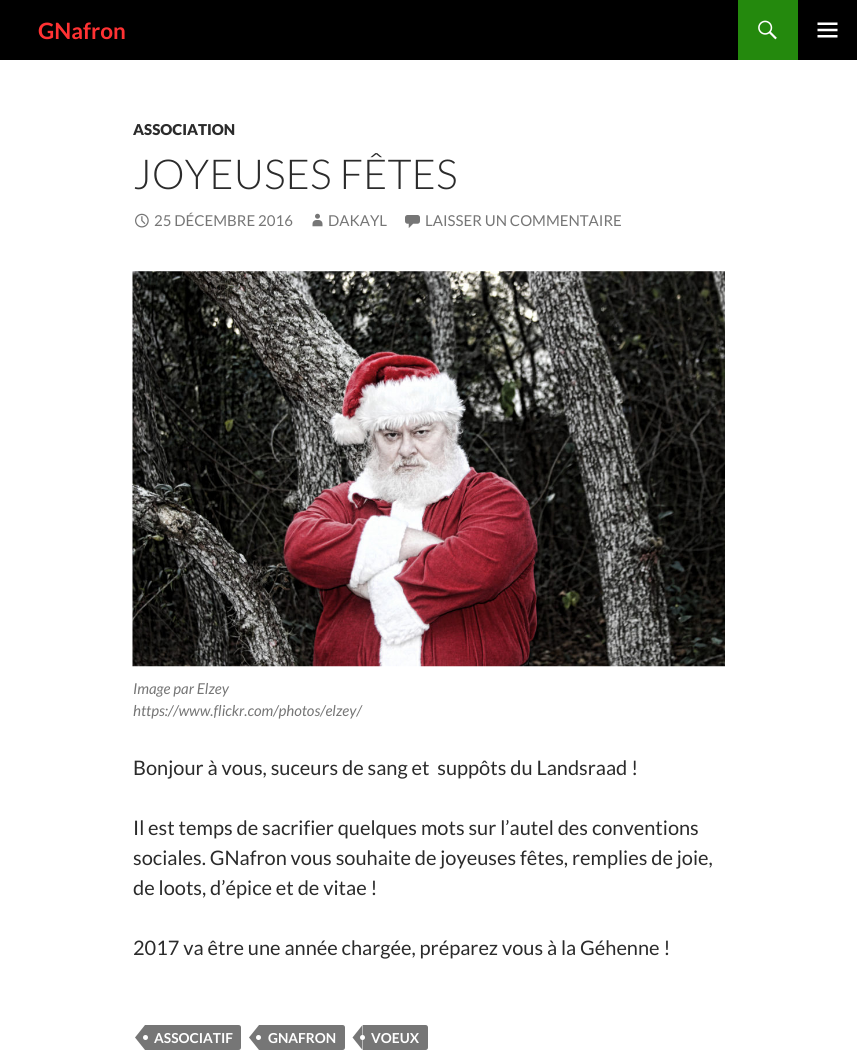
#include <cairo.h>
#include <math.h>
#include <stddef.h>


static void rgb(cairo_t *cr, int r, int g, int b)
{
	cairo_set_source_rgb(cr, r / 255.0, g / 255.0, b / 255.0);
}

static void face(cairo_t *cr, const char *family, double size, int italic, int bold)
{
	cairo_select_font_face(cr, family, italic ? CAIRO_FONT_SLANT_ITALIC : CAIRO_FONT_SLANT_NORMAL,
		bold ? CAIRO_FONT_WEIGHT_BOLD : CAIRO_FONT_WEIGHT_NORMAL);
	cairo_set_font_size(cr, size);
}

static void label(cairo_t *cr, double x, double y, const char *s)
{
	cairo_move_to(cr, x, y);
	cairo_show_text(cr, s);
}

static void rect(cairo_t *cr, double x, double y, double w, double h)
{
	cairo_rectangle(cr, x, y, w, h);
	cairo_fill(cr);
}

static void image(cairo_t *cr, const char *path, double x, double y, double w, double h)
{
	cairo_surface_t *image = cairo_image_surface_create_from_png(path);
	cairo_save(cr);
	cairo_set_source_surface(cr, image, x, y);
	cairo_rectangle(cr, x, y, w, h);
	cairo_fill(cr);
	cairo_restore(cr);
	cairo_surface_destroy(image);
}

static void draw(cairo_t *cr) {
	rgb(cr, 255, 255, 255);
	cairo_paint(cr);
	rgb(cr, 0, 0, 0);
	rect(cr, 0, 0, 857, 60);
	face(cr, "Lato", 22.5, 0, 1);
	rgb(cr, 255, 50, 51);
	label(cr, 38, 39, "GNafron");
	rgb(cr, 36, 137, 13);
	rect(cr, 738, 0, 60, 60);
	image(cr, "image0.png", 758, 20, 19, 20);
	image(cr, "image1.png", 817, 22, 21, 16);
	face(cr, "Lato Black", 15, 0, 0);
	rgb(cr, 43, 43, 43);
	label(cr, 133, 135, "ASSOCIATION");
	face(cr, "Lato Light", 41.25, 0, 0);
	label(cr, 133, 189, "JOYEUSES FÊTES");
	image(cr, "image2.png", 135, 213, 14, 15);
	face(cr, "Lato", 15, 0, 0);
	rgb(cr, 118, 118, 118);
	label(cr, 154, 226, "25 DÉCEMBRE 2016");
	image(cr, "image3.png", 312, 213, 11, 14);
	label(cr, 328, 226, "DAKAYL");
	image(cr, "image4.png", 405, 215, 15, 13);
	label(cr, 425, 226, "LAISSER UN COMMENTAIRE");
	image(cr, "image5.png", 132, 271, 593, 396);
	face(cr, "Lato", 15, 1, 0);
	label(cr, 133, 694, "Image par Elzey");
	label(cr, 133, 716, "https://www.flickr.com/photos/elzey/");
	face(cr, "Lato", 20, 0, 0);
	rgb(cr, 43, 43, 43);
	label(cr, 133, 775, "Bonjour à vous, suceurs de sang et  suppôts du Landsraad !");
	label(cr, 133, 835, "Il est temps de sacrifier quelques mots sur l’autel des conventions");
	label(cr, 133, 865, "sociales. GNafron vous souhaite de joyeuses fêtes, remplies de joie,");
	label(cr, 133, 895, "de loots, d’épice et de vitae !");
	label(cr, 133, 955, "2017 va être une année chargée, préparez vous à la Géhenne !");
	rgb(cr, 118, 118, 118);
	cairo_new_path(cr);
	cairo_move_to(cr, 145, 1025);
	cairo_line_to(cr, 238.5, 1025);
	cairo_curve_to(cr, 240, 1025, 241, 1026, 241, 1027.5);
	cairo_line_to(cr, 241, 1047.5);
	cairo_curve_to(cr, 241, 1049, 240, 1050, 238.5, 1050);
	cairo_line_to(cr, 145, 1050);
	cairo_close_path(cr);
	cairo_fill(cr);
	cairo_new_path(cr);
	cairo_move_to(cr, 145, 1025);
	cairo_line_to(cr, 145, 1050);
	cairo_line_to(cr, 135, 1037.5);
	cairo_close_path(cr);
	cairo_fill(cr);
	rgb(cr, 255, 255, 255);
	cairo_arc(cr, 145.5, 1037.5, 2.5, 0, 2 * M_PI);
	cairo_fill(cr);
	face(cr, "Lato", 13.75, 0, 1);
	label(cr, 154, 1043, "ASSOCIATIF");
	rgb(cr, 118, 118, 118);
	cairo_new_path(cr);
	cairo_move_to(cr, 259, 1025);
	cairo_line_to(cr, 342.5, 1025);
	cairo_curve_to(cr, 344, 1025, 345, 1026, 345, 1027.5);
	cairo_line_to(cr, 345, 1047.5);
	cairo_curve_to(cr, 345, 1049, 344, 1050, 342.5, 1050);
	cairo_line_to(cr, 259, 1050);
	cairo_close_path(cr);
	cairo_fill(cr);
	cairo_new_path(cr);
	cairo_move_to(cr, 259, 1025);
	cairo_line_to(cr, 259, 1050);
	cairo_line_to(cr, 249, 1037.5);
	cairo_close_path(cr);
	cairo_fill(cr);
	rgb(cr, 255, 255, 255);
	label(cr, 268, 1043, "GNAFRON");
	cairo_new_path(cr);
	cairo_arc(cr, 258.5, 1037.5, 2.5, 0, 2 * M_PI);
	cairo_fill(cr);
	rgb(cr, 118, 118, 118);
	cairo_new_path(cr);
	cairo_move_to(cr, 363, 1025);
	cairo_line_to(cr, 425.5, 1025);
	cairo_curve_to(cr, 427, 1025, 428, 1026, 428, 1027.5);
	cairo_line_to(cr, 428, 1047.5);
	cairo_curve_to(cr, 428, 1049, 427, 1050, 425.5, 1050);
	cairo_line_to(cr, 363, 1050);
	cairo_close_path(cr);
	cairo_fill(cr);
	cairo_new_path(cr);
	cairo_move_to(cr, 362.5, 1025);
	cairo_line_to(cr, 362.5, 1050);
	cairo_line_to(cr, 352.5, 1037.5);
	cairo_close_path(cr);
	cairo_fill(cr);
	rgb(cr, 255, 255, 255);
	label(cr, 371, 1043, "VOEUX");
	cairo_new_path(cr);
	cairo_arc(cr, 362.5, 1037.5, 2.5, 0, 2 * M_PI);
	cairo_fill(cr);
}

int main(void) {
	cairo_surface_t *surface = cairo_image_surface_create(CAIRO_FORMAT_RGB24, 857, 1064);
	cairo_t *cr = cairo_create(surface);
	cairo_font_options_t *options = cairo_font_options_create();
	cairo_font_options_set_hint_metrics(options, CAIRO_HINT_METRICS_OFF);
	cairo_font_options_set_hint_style(options, CAIRO_HINT_STYLE_NONE);
	cairo_set_font_options(cr, options);
	cairo_set_miter_limit(cr, 4);
	draw(cr);
	cairo_surface_write_to_png(surface, "render.png");
	cairo_font_options_destroy(options);
	cairo_destroy(cr);
	cairo_surface_destroy(surface);
	return 0;
}
